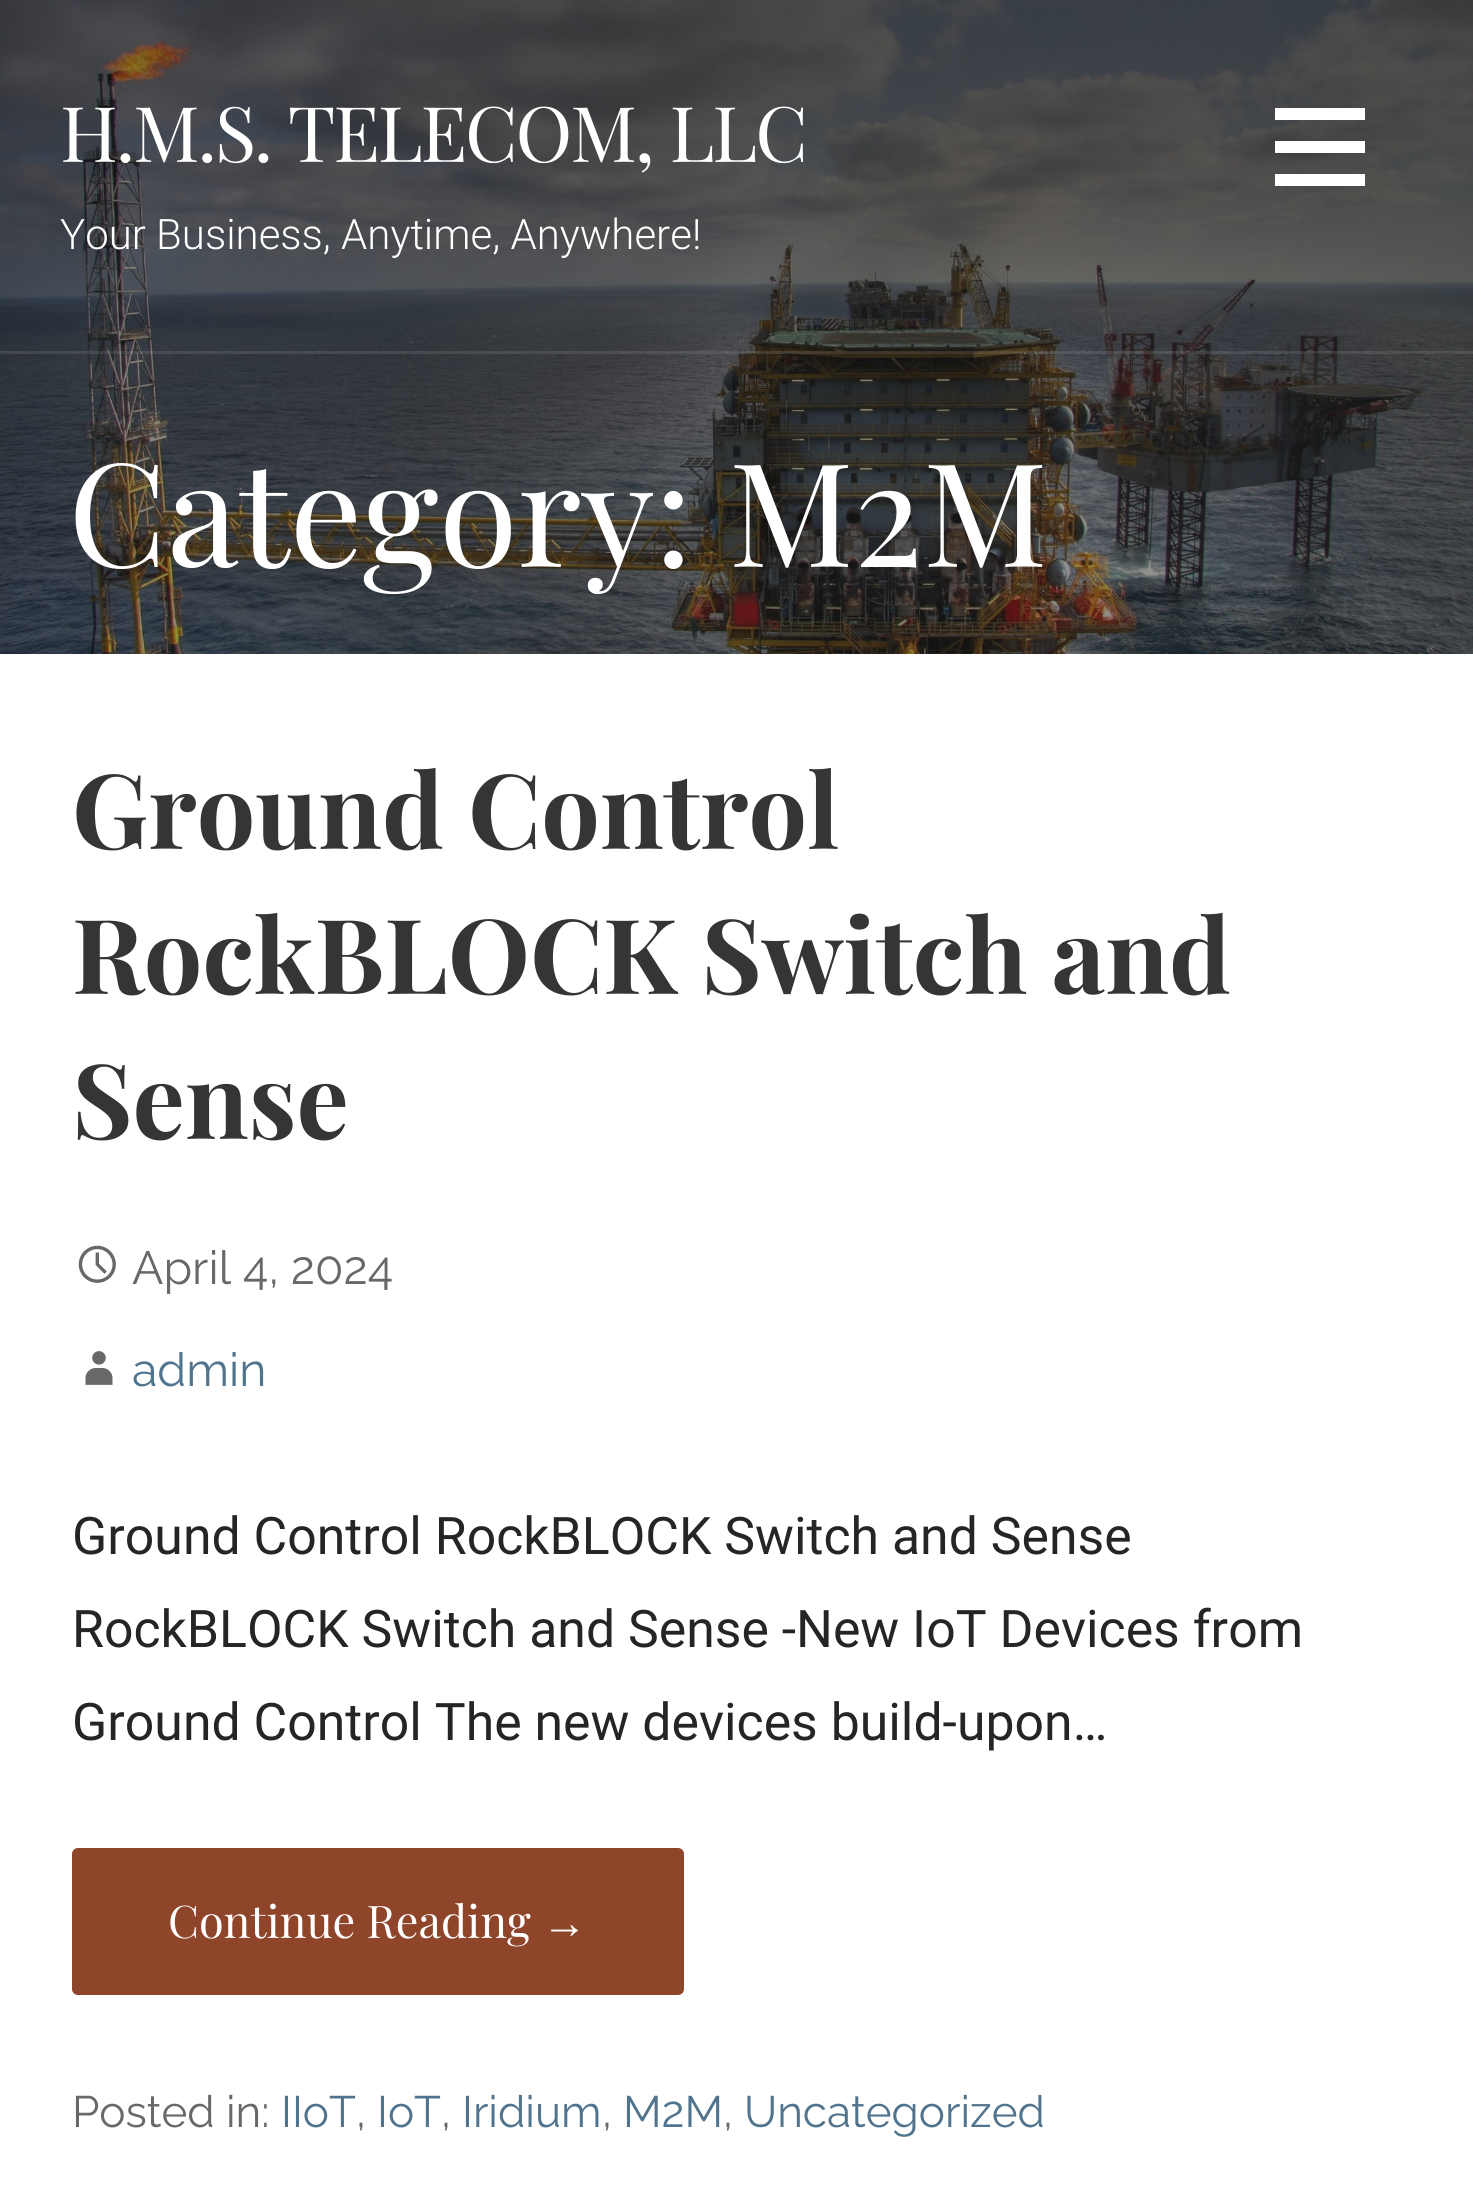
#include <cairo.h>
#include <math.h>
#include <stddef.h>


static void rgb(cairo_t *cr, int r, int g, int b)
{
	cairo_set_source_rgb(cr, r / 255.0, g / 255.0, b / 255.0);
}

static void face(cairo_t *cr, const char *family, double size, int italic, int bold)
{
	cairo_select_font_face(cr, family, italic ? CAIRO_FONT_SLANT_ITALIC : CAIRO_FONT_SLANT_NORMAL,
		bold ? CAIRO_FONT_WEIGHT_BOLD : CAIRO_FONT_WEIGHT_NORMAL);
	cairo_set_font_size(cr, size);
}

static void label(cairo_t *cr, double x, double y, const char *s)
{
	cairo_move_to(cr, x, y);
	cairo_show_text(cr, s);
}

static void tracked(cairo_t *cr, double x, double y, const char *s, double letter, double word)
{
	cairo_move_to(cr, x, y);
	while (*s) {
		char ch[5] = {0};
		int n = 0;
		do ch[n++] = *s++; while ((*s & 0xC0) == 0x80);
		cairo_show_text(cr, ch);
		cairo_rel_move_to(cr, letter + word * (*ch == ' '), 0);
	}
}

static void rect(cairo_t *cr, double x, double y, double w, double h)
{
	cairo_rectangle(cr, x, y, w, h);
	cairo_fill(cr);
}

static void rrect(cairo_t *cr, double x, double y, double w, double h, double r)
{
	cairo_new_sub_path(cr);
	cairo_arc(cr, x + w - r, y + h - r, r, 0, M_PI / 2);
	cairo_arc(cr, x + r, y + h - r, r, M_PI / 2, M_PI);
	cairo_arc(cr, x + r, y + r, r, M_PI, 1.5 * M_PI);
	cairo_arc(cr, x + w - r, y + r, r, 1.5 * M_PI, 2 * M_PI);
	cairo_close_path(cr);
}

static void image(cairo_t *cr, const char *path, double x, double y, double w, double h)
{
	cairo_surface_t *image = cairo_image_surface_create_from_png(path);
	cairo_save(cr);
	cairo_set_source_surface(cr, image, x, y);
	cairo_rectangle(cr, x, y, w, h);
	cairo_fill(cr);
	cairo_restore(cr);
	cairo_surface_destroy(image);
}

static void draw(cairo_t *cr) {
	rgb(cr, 255, 255, 255);
	cairo_paint(cr);
	image(cr, "image0.png", 0, 0, 1473, 654);
	cairo_set_source_rgba(cr, 1, 1, 1, 0.1);
	rect(cr, 0, 351, 1473, 3);
	face(cr, "Playfair Display", 76.75, 0, 0);
	rgb(cr, 255, 255, 255);
	tracked(cr, 60, 162, "H.M.S. TELECOM, LLC", -2.25, 0);
	face(cr, "Roboto Light", 42, 0, 0);
	label(cr, 60, 249, "Your Business, Anytime, Anywhere!");
	rect(cr, 1275, 108, 90, 12);
	rect(cr, 1275, 141, 90, 12);
	rect(cr, 1275, 174, 90, 12);
	face(cr, "Playfair Display", 144, 0, 0);
	label(cr, 68, 567, "Category: M2M");
	face(cr, "Playfair Display", 103.75, 0, 1);
	rgb(cr, 53, 53, 53);
	label(cr, 72, 849, "Ground Control");
	label(cr, 72, 994, "RockBLOCK Switch and");
	label(cr, 72, 1139, "Sense");
	image(cr, "image1.png", 78, 1245, 38, 38);
	face(cr, "Raleway", 46.5, 0, 0);
	rgb(cr, 104, 104, 104);
	label(cr, 132, 1284, "April 4, 2024");
	image(cr, "image2.png", 85, 1351, 28, 34);
	rgb(cr, 81, 116, 142);
	label(cr, 132, 1386, "admin");
	face(cr, "Roboto", 51.8, 0, 0);
	rgb(cr, 37, 37, 37);
	label(cr, 72, 1554, "Ground Control RockBLOCK Switch and Sense");
	label(cr, 72, 1647, "RockBLOCK Switch and Sense -New IoT Devices from");
	label(cr, 72, 1740, "Ground Control The new devices build-upon…");
	rgb(cr, 142, 69, 42);
	rrect(cr, 72, 1848, 612, 147, 6);
	cairo_fill(cr);
	face(cr, "Playfair Display", 45, 0, 0);
	rgb(cr, 255, 255, 255);
	label(cr, 168, 1938, "Continue Reading");
	face(cr, "Liberation Sans", 45, 0, 0);
	label(cr, 542, 1938, "→");
	face(cr, "Raleway", 44, 0, 0);
	rgb(cr, 104, 104, 104);
	label(cr, 72, 2127, "Posted in:");
	rgb(cr, 81, 116, 142);
	label(cr, 281, 2127, "IIoT");
	rgb(cr, 104, 104, 104);
	label(cr, 356, 2127, ",");
	rgb(cr, 81, 116, 142);
	label(cr, 377, 2127, "IoT");
	rgb(cr, 104, 104, 104);
	label(cr, 441, 2127, ",");
	rgb(cr, 81, 116, 142);
	label(cr, 462, 2127, "Iridium");
	rgb(cr, 104, 104, 104);
	label(cr, 602, 2127, ",");
	rgb(cr, 81, 116, 142);
	label(cr, 623, 2127, "M2M");
	rgb(cr, 104, 104, 104);
	label(cr, 723, 2127, ",");
	rgb(cr, 81, 116, 142);
	label(cr, 744, 2127, "Uncategorized");
}

int main(void) {
	cairo_surface_t *surface = cairo_image_surface_create(CAIRO_FORMAT_RGB24, 1473, 2192);
	cairo_t *cr = cairo_create(surface);
	cairo_font_options_t *options = cairo_font_options_create();
	cairo_font_options_set_hint_metrics(options, CAIRO_HINT_METRICS_OFF);
	cairo_font_options_set_hint_style(options, CAIRO_HINT_STYLE_NONE);
	cairo_set_font_options(cr, options);
	cairo_set_miter_limit(cr, 4);
	draw(cr);
	cairo_surface_write_to_png(surface, "render.png");
	cairo_font_options_destroy(options);
	cairo_destroy(cr);
	cairo_surface_destroy(surface);
	return 0;
}
